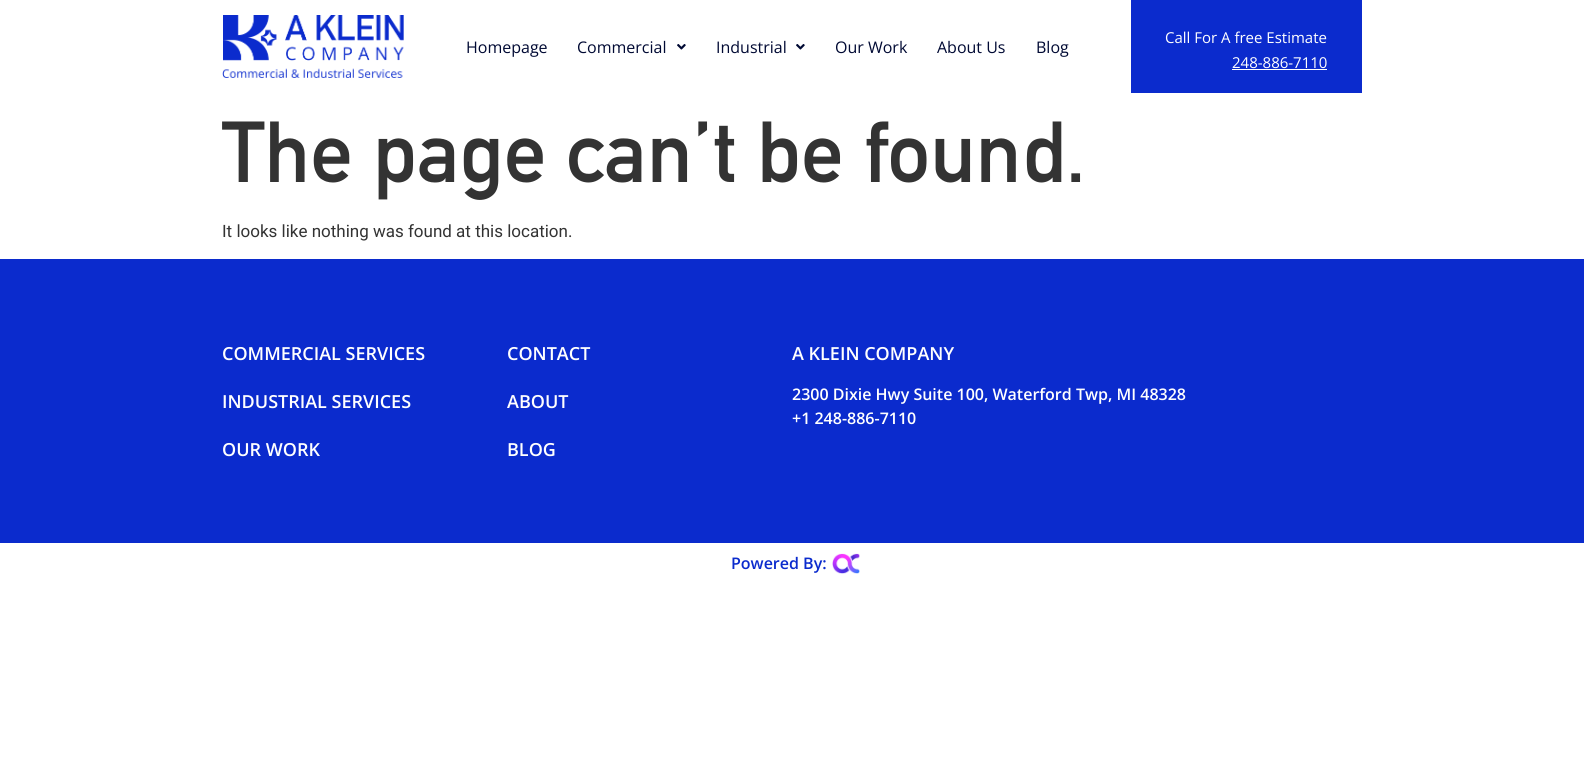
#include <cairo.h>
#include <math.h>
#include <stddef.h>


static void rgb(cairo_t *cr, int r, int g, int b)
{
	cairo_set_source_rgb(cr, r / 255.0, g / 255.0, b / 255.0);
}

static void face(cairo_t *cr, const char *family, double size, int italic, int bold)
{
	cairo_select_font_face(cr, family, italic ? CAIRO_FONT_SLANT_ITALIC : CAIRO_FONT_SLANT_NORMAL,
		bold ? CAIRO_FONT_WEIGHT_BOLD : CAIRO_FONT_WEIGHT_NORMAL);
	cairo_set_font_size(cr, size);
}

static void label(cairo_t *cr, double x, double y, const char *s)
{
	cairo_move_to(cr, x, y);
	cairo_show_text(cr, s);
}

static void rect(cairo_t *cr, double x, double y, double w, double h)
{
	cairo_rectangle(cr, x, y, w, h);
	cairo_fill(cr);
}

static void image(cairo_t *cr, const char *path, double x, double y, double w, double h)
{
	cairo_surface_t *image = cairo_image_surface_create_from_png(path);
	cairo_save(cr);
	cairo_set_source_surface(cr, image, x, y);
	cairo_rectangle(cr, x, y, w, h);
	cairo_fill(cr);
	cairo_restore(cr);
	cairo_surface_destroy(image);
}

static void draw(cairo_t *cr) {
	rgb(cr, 255, 255, 255);
	cairo_paint(cr);
	image(cr, "image0.png", 222, 15, 182, 63);
	face(cr, "Open Sans", 16, 0, 0);
	rgb(cr, 0, 9, 51);
	label(cr, 466, 53, "Homepage");
	label(cr, 577, 53, "Commercial");
	image(cr, "image1.png", 677, 44, 9, 6);
	label(cr, 716, 53, "Industrial");
	image(cr, "image1.png", 796, 44, 9, 6);
	label(cr, 835, 53, "Our Work");
	label(cr, 937, 53, "About Us");
	label(cr, 1036, 53, "Blog");
	rgb(cr, 11, 43, 205);
	rect(cr, 1131, 0, 231, 93);
	face(cr, "Open Sans", 15, 0, 0);
	rgb(cr, 255, 255, 255);
	label(cr, 1165, 43, "Call For A free Estimate");
	label(cr, 1232, 68, "248-886-7110");
	rect(cr, 1232, 69, 95, 1);
	face(cr, "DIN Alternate", 85, 0, 1);
	rgb(cr, 51, 51, 51);
	label(cr, 222, 182, "The page can’t be found.");
	face(cr, "Roboto", 17, 0, 0);
	label(cr, 222, 237, "It looks like nothing was found at this location.");
	rgb(cr, 11, 43, 205);
	rect(cr, 0, 259, 1584, 284);
	face(cr, "Open Sans SemiBold", 18, 0, 0);
	rgb(cr, 255, 255, 255);
	label(cr, 222, 360, "COMMERCIAL SERVICES");
	label(cr, 222, 408, "INDUSTRIAL SERVICES");
	label(cr, 222, 456, "OUR WORK");
	label(cr, 507, 360, "CONTACT");
	label(cr, 507, 408, "ABOUT");
	label(cr, 507, 456, "BLOG");
	label(cr, 792, 360, "A KLEIN COMPANY");
	face(cr, "Open Sans SemiBold", 16, 0, 0);
	label(cr, 792, 400, "2300 Dixie Hwy Suite 100, Waterford Twp, MI 48328");
	label(cr, 792, 424, "+1 248-886-7110");
	rgb(cr, 11, 43, 205);
	label(cr, 731, 569, "Powered By:");
	image(cr, "image2.png", 832, 553, 28, 21);
}

int main(void) {
	cairo_surface_t *surface = cairo_image_surface_create(CAIRO_FORMAT_RGB24, 1584, 765);
	cairo_t *cr = cairo_create(surface);
	cairo_font_options_t *options = cairo_font_options_create();
	cairo_font_options_set_hint_metrics(options, CAIRO_HINT_METRICS_OFF);
	cairo_font_options_set_hint_style(options, CAIRO_HINT_STYLE_NONE);
	cairo_set_font_options(cr, options);
	cairo_set_miter_limit(cr, 4);
	draw(cr);
	cairo_surface_write_to_png(surface, "render.png");
	cairo_font_options_destroy(options);
	cairo_destroy(cr);
	cairo_surface_destroy(surface);
	return 0;
}
